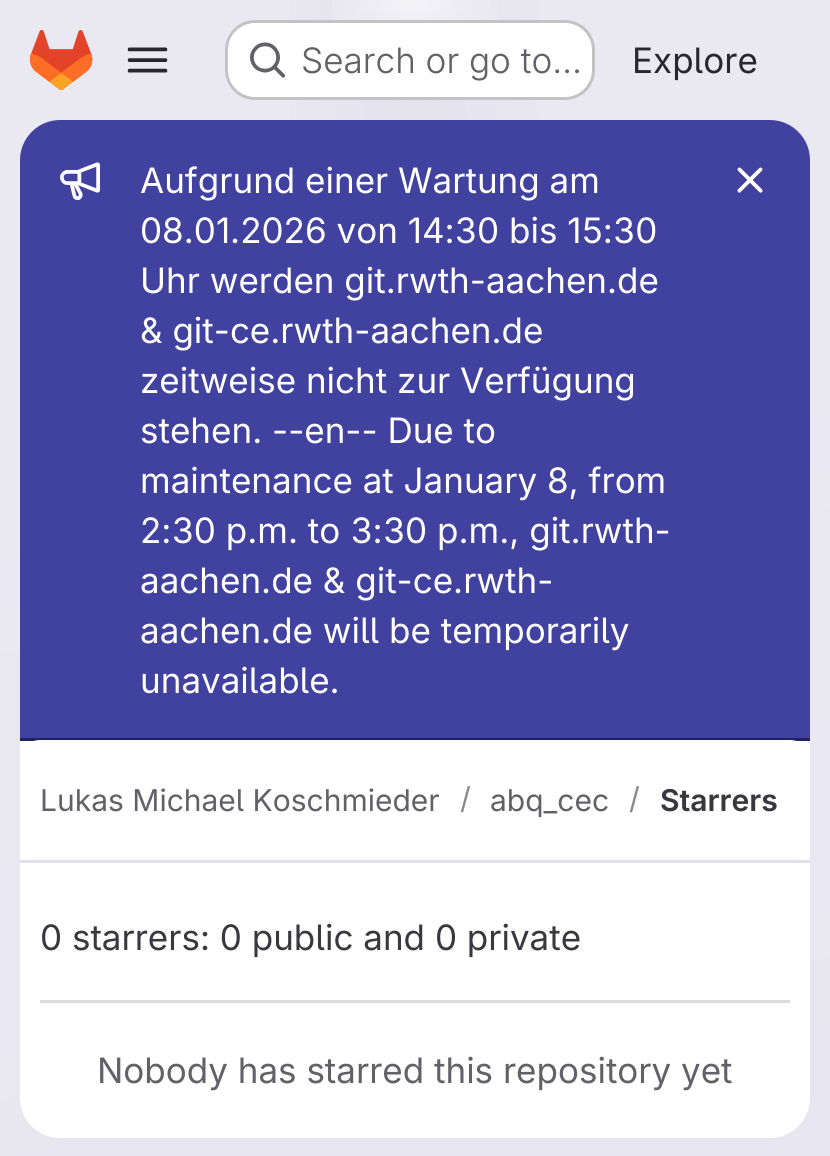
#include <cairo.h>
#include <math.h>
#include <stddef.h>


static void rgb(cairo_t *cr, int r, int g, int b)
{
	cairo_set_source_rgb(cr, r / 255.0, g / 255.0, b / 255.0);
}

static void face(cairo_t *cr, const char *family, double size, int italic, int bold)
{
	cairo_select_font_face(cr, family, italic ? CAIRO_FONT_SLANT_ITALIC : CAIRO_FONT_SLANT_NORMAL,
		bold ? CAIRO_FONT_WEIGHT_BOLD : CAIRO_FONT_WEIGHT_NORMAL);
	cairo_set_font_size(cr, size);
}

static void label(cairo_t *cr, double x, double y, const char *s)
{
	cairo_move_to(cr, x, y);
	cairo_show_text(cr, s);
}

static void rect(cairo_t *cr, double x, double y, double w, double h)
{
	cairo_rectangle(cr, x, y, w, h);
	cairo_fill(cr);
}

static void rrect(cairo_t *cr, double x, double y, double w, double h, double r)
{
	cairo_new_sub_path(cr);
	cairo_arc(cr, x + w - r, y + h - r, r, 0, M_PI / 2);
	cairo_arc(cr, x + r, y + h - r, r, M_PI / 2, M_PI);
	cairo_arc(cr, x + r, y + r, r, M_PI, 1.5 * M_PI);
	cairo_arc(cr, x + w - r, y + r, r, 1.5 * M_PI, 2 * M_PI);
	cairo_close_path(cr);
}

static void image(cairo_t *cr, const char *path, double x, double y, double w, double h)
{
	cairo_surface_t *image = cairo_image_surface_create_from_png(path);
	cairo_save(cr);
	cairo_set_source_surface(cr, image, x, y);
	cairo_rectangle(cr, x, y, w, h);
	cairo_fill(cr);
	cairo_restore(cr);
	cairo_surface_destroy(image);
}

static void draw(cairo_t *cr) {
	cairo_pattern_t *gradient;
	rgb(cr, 255, 255, 255);
	cairo_paint(cr);
	gradient = cairo_pattern_create_linear(526, 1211, 304, -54);
	cairo_pattern_add_color_stop_rgba(gradient, 0, 0.91, 0.902, 0.941, 1);
	cairo_pattern_add_color_stop_rgba(gradient, 0.7, 0.918, 0.914, 0.949, 1);
	cairo_set_source(cr, gradient);
	cairo_pattern_destroy(gradient);
	rect(cr, 0, 0, 830, 1156);
	gradient = cairo_pattern_create_radial(0, 0, 0, 0, 0, 1);
	cairo_pattern_set_matrix(gradient, &(cairo_matrix_t){1.0 / 415, 0, 0, 1.0 / 1158, -1.0 * 415 / 415, -1.0 * 0 / 1158});
	cairo_pattern_add_color_stop_rgba(gradient, 0, 0.894, 0.886, 0.929, 1);
	cairo_pattern_add_color_stop_rgba(gradient, 0.42, 0.894, 0.886, 0.929, 0);
	cairo_set_source(cr, gradient);
	cairo_pattern_destroy(gradient);
	rect(cr, 290, 0, 250, 120);
	gradient = cairo_pattern_create_radial(0, 0, 0, 0, 0, 1);
	cairo_pattern_set_matrix(gradient, &(cairo_matrix_t){1.0 / 415, 0, 0, 1.0 / 1158, -1.0 * 415 / 415, -1.0 * 0 / 1158});
	cairo_pattern_add_color_stop_rgba(gradient, 0, 0.894, 0.886, 0.925, 1);
	cairo_pattern_add_color_stop_rgba(gradient, 0.3, 0.894, 0.886, 0.925, 0);
	cairo_set_source(cr, gradient);
	cairo_pattern_destroy(gradient);
	rect(cr, 364, 12, 102, 106);
	gradient = cairo_pattern_create_radial(415, 0, 0, 415, 0, 1230);
	cairo_pattern_add_color_stop_rgba(gradient, 0, 1, 1, 1, 0.6);
	cairo_pattern_add_color_stop_rgba(gradient, 0.08, 1, 1, 1, 0);
	cairo_set_source(cr, gradient);
	cairo_pattern_destroy(gradient);
	rect(cr, 332, 0, 166, 20);
	image(cr, "image0.png", 30, 30, 63, 60);
	image(cr, "image1.png", 127, 47, 41, 26);
	rgb(cr, 255, 255, 255);
	rrect(cr, 225, 20, 370, 80, 30);
	cairo_fill(cr);
	rrect(cr, 226.5, 21.5, 367, 77, 28.5);
	cairo_set_source_rgba(cr, 0.02, 0.02, 0.024, 0.24);
	cairo_set_line_width(cr, 3);
	cairo_stroke(cr);
	image(cr, "image2.png", 250, 42, 36, 36);
	face(cr, "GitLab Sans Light", 35, 0, 0);
	rgb(cr, 98, 97, 104);
	label(cr, 301, 73, "Search or go to…");
	face(cr, "GitLab Sans", 35, 0, 0);
	rgb(cr, 40, 39, 45);
	label(cr, 632, 73, "Explore");
	rgb(cr, 255, 255, 255);
	rrect(cr, 20, 120, 790, 1018, 40);
	cairo_fill(cr);
	rgb(cr, 65, 65, 159);
	cairo_new_path(cr);
	cairo_move_to(cr, 60, 120);
	cairo_line_to(cr, 770, 120);
	cairo_curve_to(cr, 792, 120, 810, 138, 810, 160);
	cairo_line_to(cr, 810, 740);
	cairo_line_to(cr, 20, 740);
	cairo_line_to(cr, 20, 160);
	cairo_curve_to(cr, 20, 138, 38, 120, 60, 120);
	cairo_close_path(cr);
	cairo_fill(cr);
	rgb(cr, 34, 34, 97);
	rect(cr, 20, 738, 790, 3);
	image(cr, "image3.png", 60, 162, 40, 38);
	rgb(cr, 255, 255, 255);
	label(cr, 140, 193, "Aufgrund einer Wartung am");
	label(cr, 140, 243, "08.01.2026 von 14:30 bis 15:30");
	label(cr, 140, 293, "Uhr werden git.rwth-aachen.de");
	label(cr, 140, 343, "& git-ce.rwth-aachen.de");
	label(cr, 140, 393, "zeitweise nicht zur Verfügung");
	label(cr, 140, 443, "stehen. --en-- Due to");
	label(cr, 140, 493, "maintenance at January 8, from");
	label(cr, 140, 543, "2:30 p.m. to 3:30 p.m., git.rwth-");
	label(cr, 140, 593, "aachen.de & git-ce.rwth-");
	label(cr, 140, 643, "aachen.de will be temporarily");
	label(cr, 140, 693, "unavailable.");
	image(cr, "image4.png", 737, 167, 26, 26);
	cairo_new_path(cr);
	cairo_move_to(cr, 40, 740);
	cairo_line_to(cr, 790, 740);
	cairo_curve_to(cr, 801, 740, 810, 749, 810, 760);
	cairo_line_to(cr, 810, 863);
	cairo_line_to(cr, 20, 863);
	cairo_line_to(cr, 20, 760);
	cairo_curve_to(cr, 20, 749, 29, 740, 40, 740);
	cairo_close_path(cr);
	cairo_fill(cr);
	rgb(cr, 225, 223, 236);
	rect(cr, 20, 860, 790, 3);
	face(cr, "GitLab Sans", 30, 0, 0);
	rgb(cr, 98, 97, 104);
	label(cr, 40, 811, "Lukas Michael Koschmieder");
	rgb(cr, 137, 136, 141);
	label(cr, 460, 809, "/");
	rgb(cr, 98, 97, 104);
	label(cr, 490, 811, "abq_cec");
	rgb(cr, 137, 136, 141);
	label(cr, 629, 809, "/");
	face(cr, "GitLab Sans SemiBold", 30, 0, 0);
	rgb(cr, 58, 56, 63);
	label(cr, 660, 811, "Starrers");
	rgb(cr, 220, 220, 222);
	rect(cr, 40, 1000, 750, 3);
	face(cr, "GitLab Sans", 35, 0, 0);
	rgb(cr, 58, 56, 63);
	label(cr, 40, 950, "0 starrers: 0 public and 0 private");
	rgb(cr, 98, 97, 104);
	label(cr, 97, 1083, "Nobody has starred this repository yet");
}

int main(void) {
	cairo_surface_t *surface = cairo_image_surface_create(CAIRO_FORMAT_RGB24, 830, 1156);
	cairo_t *cr = cairo_create(surface);
	cairo_font_options_t *options = cairo_font_options_create();
	cairo_font_options_set_hint_metrics(options, CAIRO_HINT_METRICS_OFF);
	cairo_font_options_set_hint_style(options, CAIRO_HINT_STYLE_NONE);
	cairo_set_font_options(cr, options);
	cairo_set_miter_limit(cr, 4);
	draw(cr);
	cairo_surface_write_to_png(surface, "render.png");
	cairo_font_options_destroy(options);
	cairo_destroy(cr);
	cairo_surface_destroy(surface);
	return 0;
}
